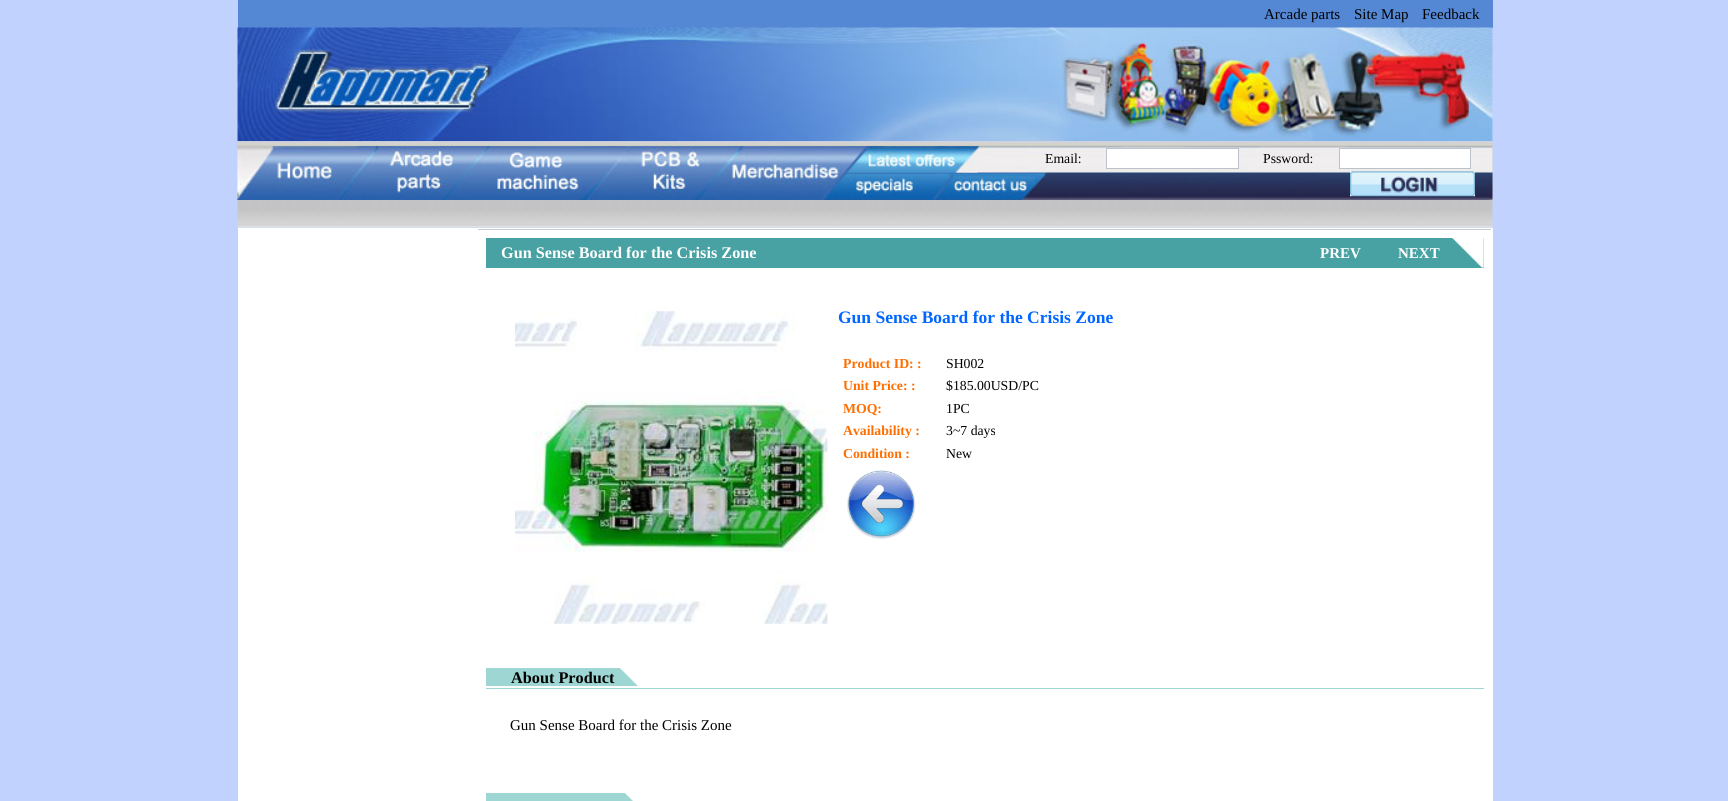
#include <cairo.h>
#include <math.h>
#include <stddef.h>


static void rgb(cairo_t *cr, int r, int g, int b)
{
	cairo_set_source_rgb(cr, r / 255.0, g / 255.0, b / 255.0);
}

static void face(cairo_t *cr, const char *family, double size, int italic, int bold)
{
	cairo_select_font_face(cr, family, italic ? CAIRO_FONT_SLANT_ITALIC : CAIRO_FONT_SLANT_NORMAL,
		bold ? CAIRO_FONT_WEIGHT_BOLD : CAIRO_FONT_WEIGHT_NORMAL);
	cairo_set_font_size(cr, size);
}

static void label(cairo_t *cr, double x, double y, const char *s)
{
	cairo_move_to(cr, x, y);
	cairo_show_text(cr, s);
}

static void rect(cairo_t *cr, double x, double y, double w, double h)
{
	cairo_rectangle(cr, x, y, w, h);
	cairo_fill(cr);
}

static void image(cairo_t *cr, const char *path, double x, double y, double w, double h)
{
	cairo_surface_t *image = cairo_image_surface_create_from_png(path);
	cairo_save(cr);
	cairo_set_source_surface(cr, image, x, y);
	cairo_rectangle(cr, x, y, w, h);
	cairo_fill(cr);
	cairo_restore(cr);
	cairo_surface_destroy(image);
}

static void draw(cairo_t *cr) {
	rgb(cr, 194, 210, 255);
	cairo_paint(cr);
	rgb(cr, 84, 136, 212);
	rect(cr, 238, 0, 1255, 28);
	face(cr, "Liberation Serif", 15, 0, 0);
	rgb(cr, 0, 0, 0);
	label(cr, 1264, 19, "Arcade parts");
	label(cr, 1354, 19, "Site Map");
	label(cr, 1422, 19, "Feedback");
	image(cr, "image0.png", 237, 27, 1256, 115);
	image(cr, "image1.png", 237, 141, 1256, 87);
	image(cr, "image2.png", 237, 146, 1256, 54);
	image(cr, "image3.png", 237, 146, 157, 54);
	image(cr, "image4.png", 343, 146, 156, 43);
	image(cr, "image5.png", 437, 146, 186, 43);
	image(cr, "image6.png", 587, 146, 157, 54);
	image(cr, "image7.png", 700, 146, 185, 34);
	image(cr, "image8.png", 847, 146, 131, 27);
	image(cr, "image9.png", 825, 173, 130, 17);
	image(cr, "image10.png", 935, 173, 109, 17);
	face(cr, "Liberation Serif", 13.75, 0, 0);
	label(cr, 1045, 163, "Email:");
	rgb(cr, 255, 255, 255);
	cairo_rectangle(cr, 1106.5, 148.5, 132, 20);
	cairo_fill_preserve(cr);
	rgb(cr, 187, 194, 202);
	cairo_set_line_width(cr, 1);
	cairo_stroke(cr);
	rgb(cr, 0, 0, 0);
	label(cr, 1263, 163, "Pssword:");
	rgb(cr, 255, 255, 255);
	cairo_rectangle(cr, 1339.5, 148.5, 131, 20);
	cairo_fill_preserve(cr);
	rgb(cr, 187, 194, 202);
	cairo_stroke(cr);
	image(cr, "image11.png", 1350, 171, 125, 26);
	rgb(cr, 255, 255, 255);
	rect(cr, 238, 228, 1255, 573);
	rgb(cr, 204, 204, 204);
	rect(cr, 478, 229, 1013, 1);
	rgb(cr, 72, 162, 163);
	rect(cr, 486, 238, 998, 30);
	image(cr, "image12.png", 1452, 238, 32, 30);
	face(cr, "Liberation Serif", 16.25, 0, 1);
	rgb(cr, 255, 255, 255);
	label(cr, 501, 258, "Gun Sense Board for the Crisis Zone");
	face(cr, "Liberation Serif", 15, 0, 1);
	label(cr, 1320, 258, "PREV");
	label(cr, 1398, 258, "NEXT");
	image(cr, "image13.png", 515, 311, 313, 313);
	face(cr, "Liberation Serif", 17.5, 0, 1);
	rgb(cr, 0, 102, 255);
	label(cr, 838, 323, "Gun Sense Board for the Crisis Zone");
	face(cr, "Liberation Serif", 13.75, 0, 1);
	rgb(cr, 255, 110, 0);
	label(cr, 843, 368, "Product ID: :");
	face(cr, "Liberation Serif", 13.75, 0, 0);
	rgb(cr, 0, 0, 0);
	label(cr, 946, 368, "SH002");
	face(cr, "Liberation Serif", 13.75, 0, 1);
	rgb(cr, 255, 110, 0);
	label(cr, 843, 390, "Unit Price: :");
	face(cr, "Liberation Serif", 13.75, 0, 0);
	rgb(cr, 0, 0, 0);
	label(cr, 946, 390, "$185.00USD/PC");
	face(cr, "Liberation Serif", 13.75, 0, 1);
	rgb(cr, 255, 110, 0);
	label(cr, 843, 413, "MOQ:");
	face(cr, "Liberation Serif", 13.75, 0, 0);
	rgb(cr, 0, 0, 0);
	label(cr, 946, 413, "1PC");
	face(cr, "Liberation Serif", 13.75, 0, 1);
	rgb(cr, 255, 110, 0);
	label(cr, 843, 435, "Availability :");
	face(cr, "Liberation Serif", 13.75, 0, 0);
	rgb(cr, 0, 0, 0);
	label(cr, 946, 435, "3~7 days");
	face(cr, "Liberation Serif", 13.75, 0, 1);
	rgb(cr, 255, 110, 0);
	label(cr, 843, 458, "Condition :");
	face(cr, "Liberation Serif", 13.75, 0, 0);
	rgb(cr, 0, 0, 0);
	label(cr, 946, 458, "New");
	image(cr, "image14.png", 847, 470, 69, 69);
	rgb(cr, 157, 214, 210);
	rect(cr, 486, 688, 998, 1);
	rect(cr, 486, 668, 152, 18);
	face(cr, "Liberation Serif", 16.25, 0, 1);
	rgb(cr, 0, 0, 0);
	label(cr, 511, 683, "About Product");
	image(cr, "image15.png", 620, 668, 25, 18);
	face(cr, "Liberation Serif", 15, 0, 0);
	label(cr, 510, 730, "Gun Sense Board for the Crisis Zone");
	rgb(cr, 157, 214, 210);
	rect(cr, 486, 793, 147, 8);
	image(cr, "image16.png", 625, 793, 25, 8);
}

int main(void) {
	cairo_surface_t *surface = cairo_image_surface_create(CAIRO_FORMAT_RGB24, 1728, 801);
	cairo_t *cr = cairo_create(surface);
	cairo_font_options_t *options = cairo_font_options_create();
	cairo_font_options_set_hint_metrics(options, CAIRO_HINT_METRICS_OFF);
	cairo_font_options_set_hint_style(options, CAIRO_HINT_STYLE_NONE);
	cairo_set_font_options(cr, options);
	cairo_set_miter_limit(cr, 4);
	draw(cr);
	cairo_surface_write_to_png(surface, "render.png");
	cairo_font_options_destroy(options);
	cairo_destroy(cr);
	cairo_surface_destroy(surface);
	return 0;
}
